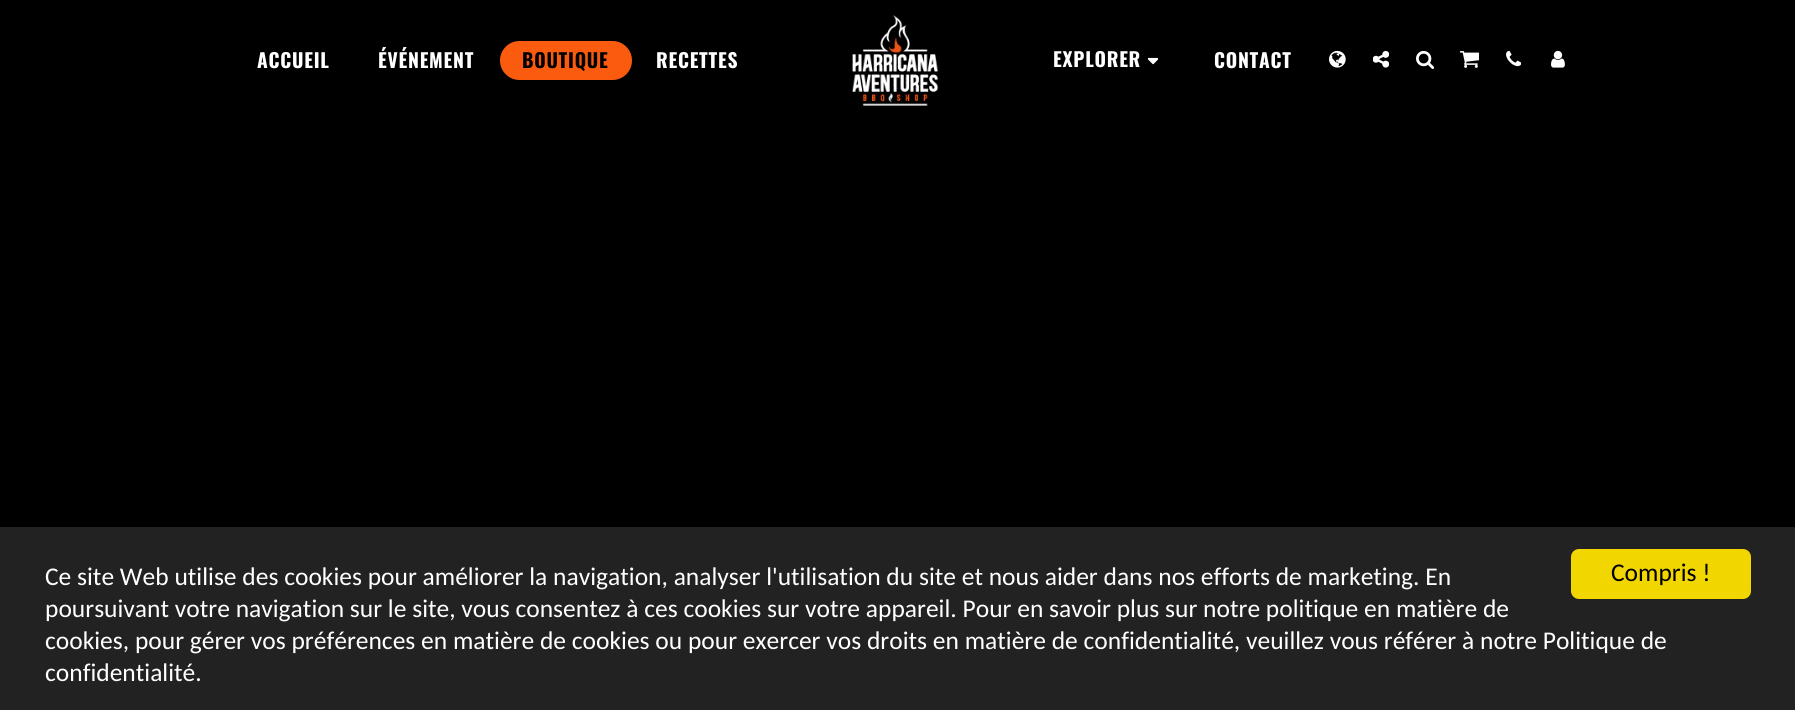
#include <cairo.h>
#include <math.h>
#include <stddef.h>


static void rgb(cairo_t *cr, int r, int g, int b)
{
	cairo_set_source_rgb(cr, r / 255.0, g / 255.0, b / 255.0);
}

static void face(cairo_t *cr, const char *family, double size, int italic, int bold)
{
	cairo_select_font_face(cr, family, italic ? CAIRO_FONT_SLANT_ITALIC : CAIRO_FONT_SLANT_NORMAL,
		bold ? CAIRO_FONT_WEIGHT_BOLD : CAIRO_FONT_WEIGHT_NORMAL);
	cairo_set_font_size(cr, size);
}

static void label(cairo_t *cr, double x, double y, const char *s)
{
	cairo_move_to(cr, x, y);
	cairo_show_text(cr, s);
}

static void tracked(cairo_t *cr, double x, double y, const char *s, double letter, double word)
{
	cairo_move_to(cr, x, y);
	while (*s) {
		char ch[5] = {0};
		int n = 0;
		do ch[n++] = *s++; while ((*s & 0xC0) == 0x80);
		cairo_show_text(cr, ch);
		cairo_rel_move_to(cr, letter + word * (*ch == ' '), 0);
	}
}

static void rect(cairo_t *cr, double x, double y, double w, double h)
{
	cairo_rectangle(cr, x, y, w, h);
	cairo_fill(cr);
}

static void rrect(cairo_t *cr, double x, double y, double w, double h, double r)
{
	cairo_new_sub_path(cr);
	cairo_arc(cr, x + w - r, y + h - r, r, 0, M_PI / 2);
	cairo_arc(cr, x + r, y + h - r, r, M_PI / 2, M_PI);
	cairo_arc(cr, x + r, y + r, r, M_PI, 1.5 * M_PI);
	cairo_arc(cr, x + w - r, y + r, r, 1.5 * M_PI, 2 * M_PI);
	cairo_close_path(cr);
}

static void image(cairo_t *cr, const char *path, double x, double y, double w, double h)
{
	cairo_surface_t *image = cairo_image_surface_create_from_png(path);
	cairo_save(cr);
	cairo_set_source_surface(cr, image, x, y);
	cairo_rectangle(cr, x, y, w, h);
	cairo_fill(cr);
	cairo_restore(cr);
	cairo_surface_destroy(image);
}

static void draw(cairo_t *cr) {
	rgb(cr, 0, 0, 0);
	cairo_paint(cr);
	face(cr, "Oswald", 19.5, 0, 1);
	rgb(cr, 255, 255, 255);
	tracked(cr, 257, 68, "ACCUEIL", 0.75, 0);
	tracked(cr, 378, 68, "ÉVÉNEMENT", 0.75, 0);
	rgb(cr, 250, 91, 15);
	rrect(cr, 500, 41, 132, 39, 19.5);
	cairo_fill(cr);
	rgb(cr, 0, 0, 0);
	tracked(cr, 522, 68, "BOUTIQUE", 0.75, 0);
	rgb(cr, 255, 255, 255);
	tracked(cr, 656, 68, "RECETTES", 0.75, 0);
	image(cr, "image0.png", 852, 15, 87, 91);
	tracked(cr, 1053, 67, "EXPLORER", 0.75, 0);
	image(cr, "image1.png", 1148, 57, 10, 8);
	tracked(cr, 1214, 68, "CONTACT", 0.75, 0);
	image(cr, "image2.png", 1329, 50, 17, 18);
	image(cr, "image3.png", 1373, 50, 16, 18);
	image(cr, "image4.png", 1416, 50, 18, 19);
	image(cr, "image5.png", 1460, 51, 19, 17);
	image(cr, "image6.png", 1506, 50, 15, 17);
	image(cr, "image7.png", 1551, 50, 14, 18);
	rgb(cr, 34, 34, 34);
	rect(cr, 0, 527, 1795, 183);
	rgb(cr, 241, 214, 0);
	rrect(cr, 1571, 549, 180, 50, 8);
	cairo_fill(cr);
	face(cr, "Carlito", 25.5, 0, 0);
	rgb(cr, 0, 0, 0);
	label(cr, 1611, 581, "Compris !");
	rgb(cr, 255, 255, 255);
	label(cr, 45, 585, "Ce site Web utilise des cookies pour améliorer la navigation, analyser l'utilisation du site et nous aider dans nos efforts de marketing. En");
	label(cr, 45, 617, "poursuivant votre navigation sur le site, vous consentez à ces cookies sur votre appareil. Pour en savoir plus sur notre politique en matière de");
	label(cr, 45, 649, "cookies, pour gérer vos préférences en matière de cookies ou pour exercer vos droits en matière de confidentialité, veuillez vous référer à notre Politique de");
	label(cr, 45, 681, "confidentialité.");
}

int main(void) {
	cairo_surface_t *surface = cairo_image_surface_create(CAIRO_FORMAT_RGB24, 1795, 710);
	cairo_t *cr = cairo_create(surface);
	cairo_font_options_t *options = cairo_font_options_create();
	cairo_font_options_set_hint_metrics(options, CAIRO_HINT_METRICS_OFF);
	cairo_font_options_set_hint_style(options, CAIRO_HINT_STYLE_NONE);
	cairo_set_font_options(cr, options);
	cairo_set_miter_limit(cr, 4);
	draw(cr);
	cairo_surface_write_to_png(surface, "render.png");
	cairo_font_options_destroy(options);
	cairo_destroy(cr);
	cairo_surface_destroy(surface);
	return 0;
}
